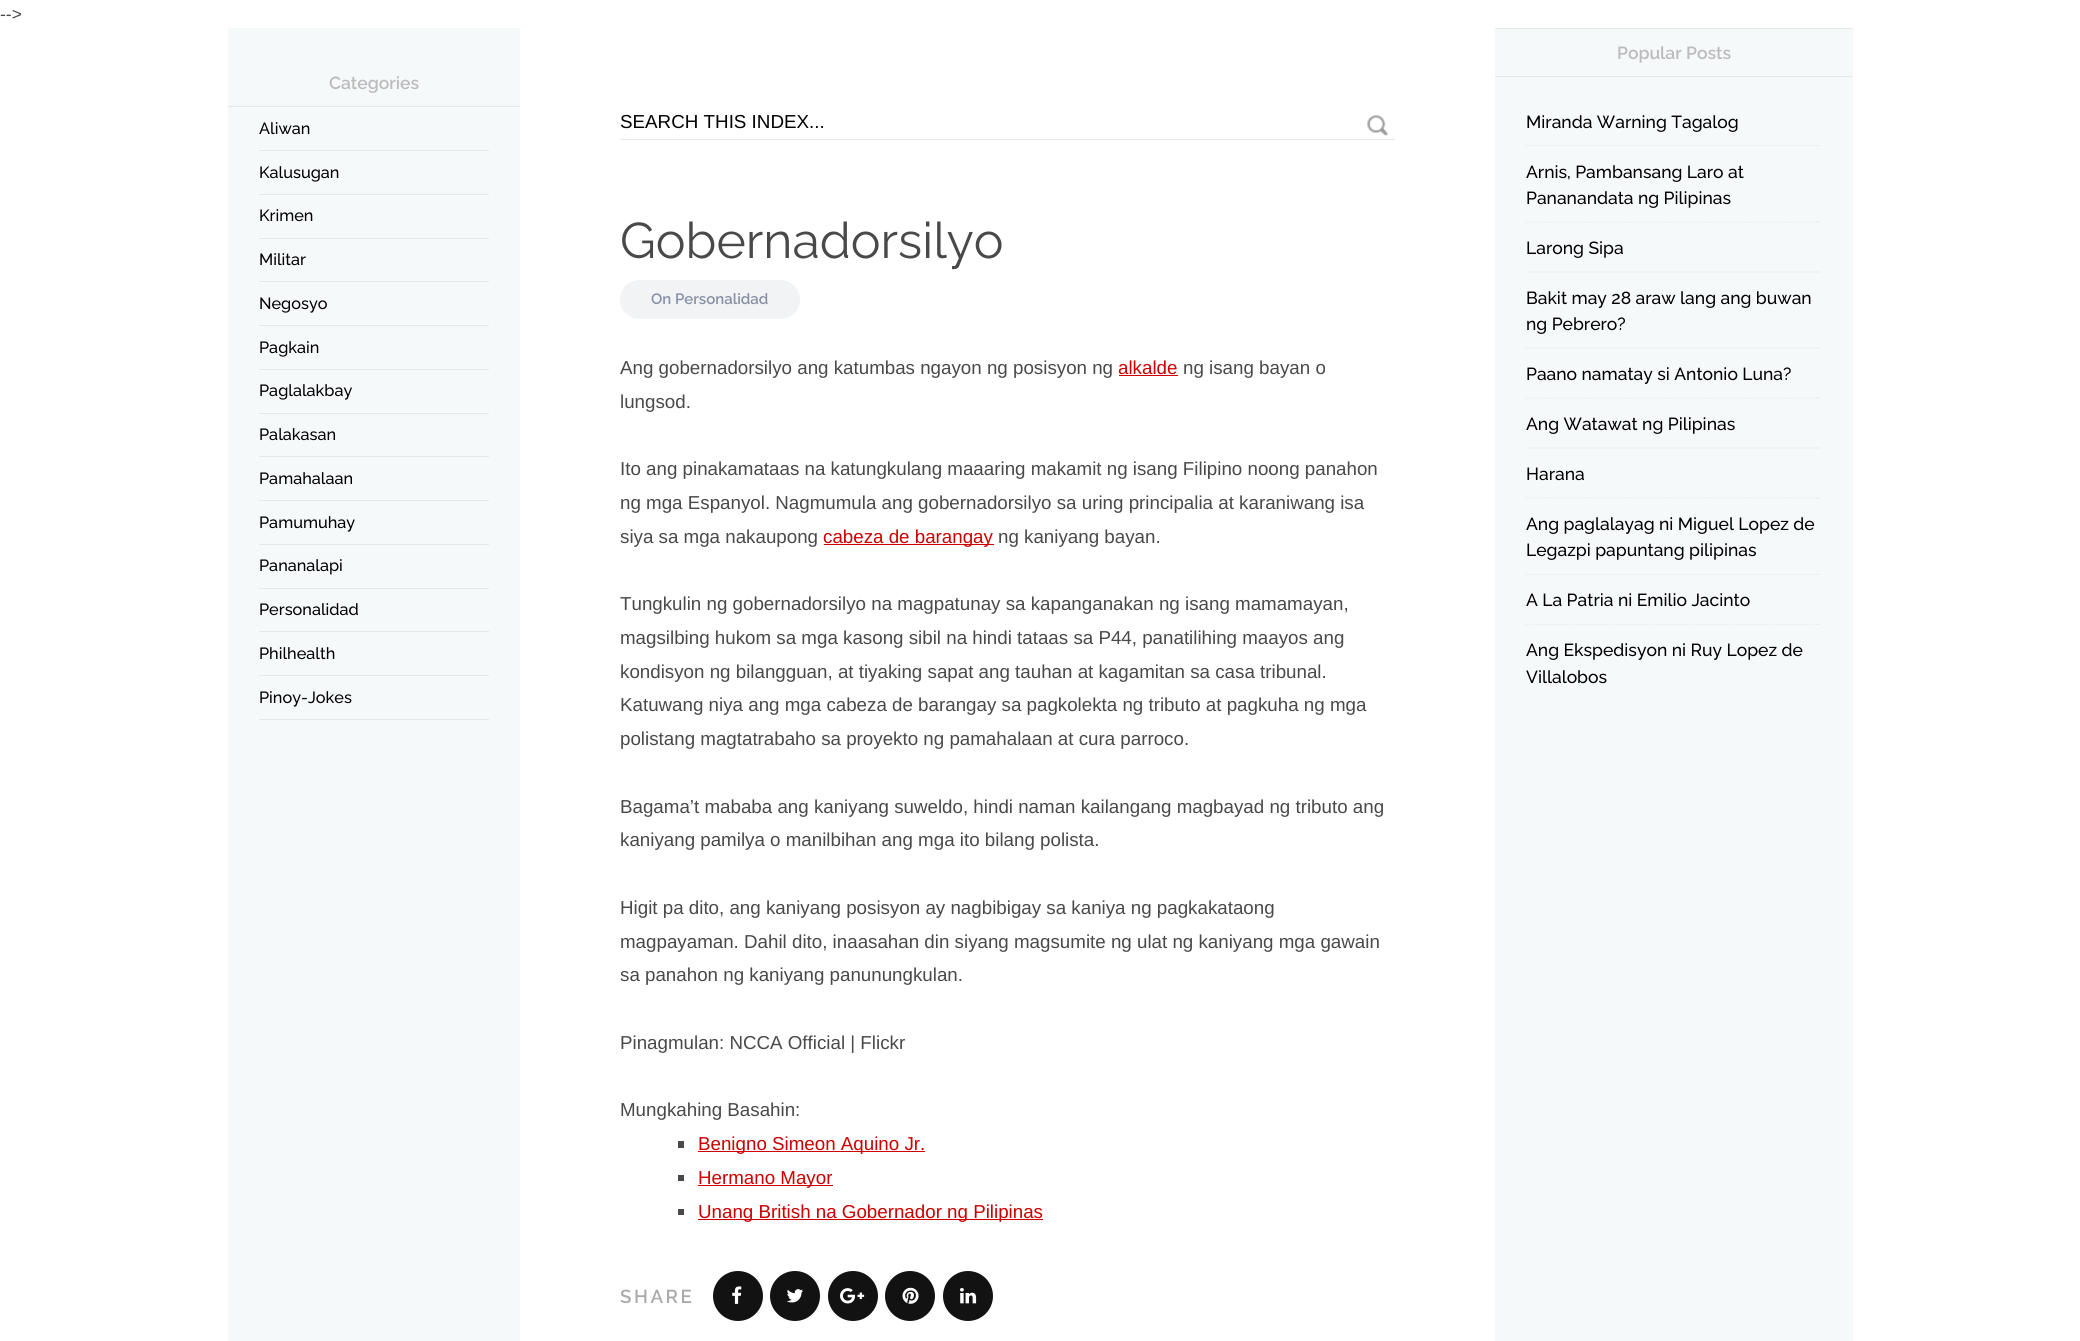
#include <cairo.h>
#include <math.h>
#include <stddef.h>


static void rgb(cairo_t *cr, int r, int g, int b)
{
	cairo_set_source_rgb(cr, r / 255.0, g / 255.0, b / 255.0);
}

static void face(cairo_t *cr, const char *family, double size, int italic, int bold)
{
	cairo_select_font_face(cr, family, italic ? CAIRO_FONT_SLANT_ITALIC : CAIRO_FONT_SLANT_NORMAL,
		bold ? CAIRO_FONT_WEIGHT_BOLD : CAIRO_FONT_WEIGHT_NORMAL);
	cairo_set_font_size(cr, size);
}

static void label(cairo_t *cr, double x, double y, const char *s)
{
	cairo_move_to(cr, x, y);
	cairo_show_text(cr, s);
}

static void tracked(cairo_t *cr, double x, double y, const char *s, double letter, double word)
{
	cairo_move_to(cr, x, y);
	while (*s) {
		char ch[5] = {0};
		int n = 0;
		do ch[n++] = *s++; while ((*s & 0xC0) == 0x80);
		cairo_show_text(cr, ch);
		cairo_rel_move_to(cr, letter + word * (*ch == ' '), 0);
	}
}

static void rect(cairo_t *cr, double x, double y, double w, double h)
{
	cairo_rectangle(cr, x, y, w, h);
	cairo_fill(cr);
}

static void rrect(cairo_t *cr, double x, double y, double w, double h, double r)
{
	cairo_new_sub_path(cr);
	cairo_arc(cr, x + w - r, y + h - r, r, 0, M_PI / 2);
	cairo_arc(cr, x + r, y + h - r, r, M_PI / 2, M_PI);
	cairo_arc(cr, x + r, y + r, r, M_PI, 1.5 * M_PI);
	cairo_arc(cr, x + w - r, y + r, r, 1.5 * M_PI, 2 * M_PI);
	cairo_close_path(cr);
}

static void image(cairo_t *cr, const char *path, double x, double y, double w, double h)
{
	cairo_surface_t *image = cairo_image_surface_create_from_png(path);
	cairo_save(cr);
	cairo_set_source_surface(cr, image, x, y);
	cairo_rectangle(cr, x, y, w, h);
	cairo_fill(cr);
	cairo_restore(cr);
	cairo_surface_destroy(image);
}

static void draw(cairo_t *cr) {
	rgb(cr, 255, 255, 255);
	cairo_paint(cr);
	face(cr, "Liberation Sans", 17.5, 0, 0);
	rgb(cr, 73, 73, 73);
	label(cr, 0, 20, "-->");
	rgb(cr, 246, 249, 250);
	rect(cr, 228, 28, 1625, 1313);
	rgb(cr, 231, 231, 231);
	rect(cr, 228, 106, 292, 1);
	face(cr, "Raleway SemiBold", 17.5, 0, 0);
	rgb(cr, 187, 187, 187);
	label(cr, 329, 89, "Categories");
	rgb(cr, 231, 231, 231);
	rect(cr, 259, 150, 230, 1);
	face(cr, "Raleway Medium", 16.25, 0, 0);
	rgb(cr, 0, 0, 0);
	label(cr, 259, 134, "Aliwan");
	rgb(cr, 231, 231, 231);
	rect(cr, 259, 194, 230, 1);
	rgb(cr, 0, 0, 0);
	label(cr, 259, 178, "Kalusugan");
	rgb(cr, 231, 231, 231);
	rect(cr, 259, 238, 230, 1);
	rgb(cr, 0, 0, 0);
	label(cr, 259, 221, "Krimen");
	rgb(cr, 231, 231, 231);
	rect(cr, 259, 281, 230, 1);
	rgb(cr, 0, 0, 0);
	label(cr, 259, 265, "Militar");
	rgb(cr, 231, 231, 231);
	rect(cr, 259, 325, 230, 1);
	rgb(cr, 0, 0, 0);
	label(cr, 259, 309, "Negosyo");
	rgb(cr, 231, 231, 231);
	rect(cr, 259, 369, 230, 1);
	rgb(cr, 0, 0, 0);
	label(cr, 259, 353, "Pagkain");
	rgb(cr, 231, 231, 231);
	rect(cr, 259, 413, 230, 1);
	rgb(cr, 0, 0, 0);
	label(cr, 259, 396, "Paglalakbay");
	rgb(cr, 231, 231, 231);
	rect(cr, 259, 456, 230, 1);
	rgb(cr, 0, 0, 0);
	label(cr, 259, 440, "Palakasan");
	rgb(cr, 231, 231, 231);
	rect(cr, 259, 500, 230, 1);
	rgb(cr, 0, 0, 0);
	label(cr, 259, 484, "Pamahalaan");
	rgb(cr, 231, 231, 231);
	rect(cr, 259, 544, 230, 1);
	rgb(cr, 0, 0, 0);
	label(cr, 259, 528, "Pamumuhay");
	rgb(cr, 231, 231, 231);
	rect(cr, 259, 588, 230, 1);
	rgb(cr, 0, 0, 0);
	label(cr, 259, 571, "Pananalapi");
	rgb(cr, 231, 231, 231);
	rect(cr, 259, 631, 230, 1);
	rgb(cr, 0, 0, 0);
	label(cr, 259, 615, "Personalidad");
	rgb(cr, 231, 231, 231);
	rect(cr, 259, 675, 230, 1);
	rgb(cr, 0, 0, 0);
	label(cr, 259, 659, "Philhealth");
	rgb(cr, 231, 231, 231);
	rect(cr, 259, 719, 230, 1);
	rgb(cr, 0, 0, 0);
	label(cr, 259, 703, "Pinoy-Jokes");
	rgb(cr, 255, 255, 255);
	rect(cr, 520, 28, 975, 1313);
	rgb(cr, 231, 231, 231);
	rect(cr, 620, 139, 775, 1);
	face(cr, "Liberation Sans", 18.8, 0, 0);
	rgb(cr, 0, 0, 0);
	label(cr, 620, 128, "SEARCH THIS INDEX...");
	image(cr, "image0.png", 1367, 115, 21, 21);
	face(cr, "Raleway", 50, 0, 0);
	rgb(cr, 73, 73, 73);
	label(cr, 620, 258, "Gobernadorsilyo");
	rgb(cr, 241, 243, 244);
	rrect(cr, 620, 280, 180, 39, 19.5);
	cairo_fill(cr);
	face(cr, "Raleway SemiBold", 15, 0, 0);
	rgb(cr, 136, 144, 167);
	label(cr, 651, 304, "On Personalidad");
	face(cr, "Liberation Sans", 18.75, 0, 0);
	rgb(cr, 73, 73, 73);
	label(cr, 620, 374, "Ang gobernadorsilyo ang katumbas ngayon ng posisyon ng");
	rgb(cr, 204, 0, 0);
	label(cr, 1118, 374, "alkalde");
	rect(cr, 1119, 375, 59, 1);
	rgb(cr, 73, 73, 73);
	label(cr, 1183, 374, "ng isang bayan o");
	label(cr, 620, 408, "lungsod.");
	label(cr, 620, 475, "Ito ang pinakamataas na katungkulang maaaring makamit ng isang Filipino noong panahon");
	label(cr, 620, 509, "ng mga Espanyol. Nagmumula ang gobernadorsilyo sa uring principalia at karaniwang isa");
	label(cr, 620, 543, "siya sa mga nakaupong");
	rgb(cr, 204, 0, 0);
	rect(cr, 824, 544, 170, 1);
	label(cr, 823, 543, "cabeza de barangay");
	rgb(cr, 73, 73, 73);
	label(cr, 998, 543, "ng kaniyang bayan.");
	label(cr, 620, 610, "Tungkulin ng gobernadorsilyo na magpatunay sa kapanganakan ng isang mamamayan,");
	label(cr, 620, 644, "magsilbing hukom sa mga kasong sibil na hindi tataas sa P44, panatilihing maayos ang");
	label(cr, 620, 678, "kondisyon ng bilangguan, at tiyaking sapat ang tauhan at kagamitan sa casa tribunal.");
	label(cr, 620, 711, "Katuwang niya ang mga cabeza de barangay sa pagkolekta ng tributo at pagkuha ng mga");
	label(cr, 620, 745, "polistang magtatrabaho sa proyekto ng pamahalaan at cura parroco.");
	label(cr, 620, 813, "Bagama’t mababa ang kaniyang suweldo, hindi naman kailangang magbayad ng tributo ang");
	label(cr, 620, 846, "kaniyang pamilya o manilbihan ang mga ito bilang polista.");
	label(cr, 620, 914, "Higit pa dito, ang kaniyang posisyon ay nagbibigay sa kaniya ng pagkakataong");
	label(cr, 620, 948, "magpayaman. Dahil dito, inaasahan din siyang magsumite ng ulat ng kaniyang mga gawain");
	label(cr, 620, 981, "sa panahon ng kaniyang panunungkulan.");
	label(cr, 620, 1049, "Pinagmulan: NCCA Official | Flickr");
	label(cr, 620, 1116, "Mungkahing Basahin:");
	rect(cr, 678, 1141, 6, 7);
	rgb(cr, 204, 0, 0);
	rect(cr, 698, 1151, 227, 1);
	label(cr, 698, 1150, "Benigno Simeon Aquino Jr.");
	rgb(cr, 73, 73, 73);
	rect(cr, 678, 1175, 6, 6);
	rgb(cr, 204, 0, 0);
	rect(cr, 698, 1185, 135, 1);
	label(cr, 698, 1184, "Hermano Mayor");
	rgb(cr, 73, 73, 73);
	rect(cr, 678, 1209, 6, 6);
	rgb(cr, 204, 0, 0);
	rect(cr, 698, 1219, 345, 1);
	label(cr, 698, 1218, "Unang British na Gobernador ng Pilipinas");
	face(cr, "Raleway SemiBold", 18.75, 0, 0);
	rgb(cr, 170, 170, 170);
	tracked(cr, 620, 1303, "SHARE", 2.5, 0);
	rgb(cr, 18, 18, 18);
	cairo_new_path(cr);
	cairo_arc(cr, 738, 1296, 25, 0, 2 * M_PI);
	cairo_fill(cr);
	image(cr, "image1.png", 732, 1286, 10, 18);
	cairo_arc(cr, 795, 1296, 25, 0, 2 * M_PI);
	cairo_fill(cr);
	image(cr, "image2.png", 787, 1289, 16, 14);
	cairo_arc(cr, 853, 1296, 25, 0, 2 * M_PI);
	cairo_fill(cr);
	image(cr, "image3.png", 840, 1288, 25, 16);
	cairo_arc(cr, 910, 1296, 25, 0, 2 * M_PI);
	cairo_fill(cr);
	image(cr, "image4.png", 902, 1287, 17, 17);
	cairo_arc(cr, 968, 1296, 25, 0, 2 * M_PI);
	cairo_fill(cr);
	image(cr, "image5.png", 960, 1288, 17, 16);
	rgb(cr, 231, 231, 231);
	rect(cr, 1495, 28, 358, 1);
	rect(cr, 1495, 76, 358, 1);
	face(cr, "Raleway SemiBold", 17.5, 0, 0);
	rgb(cr, 187, 187, 187);
	label(cr, 1617, 59, "Popular Posts");
	cairo_new_path(cr);
	cairo_move_to(cr, 1526, 145.5);
	cairo_line_to(cr, 1821, 145.5);
	rgb(cr, 231, 231, 231);
	cairo_set_line_width(cr, 1.2);
	cairo_set_dash(cr, (double[]){1.25, 1.25}, 2, 0);
	cairo_stroke(cr);
	face(cr, "Raleway Medium", 17.5, 0, 0);
	rgb(cr, 0, 0, 0);
	label(cr, 1526, 128, "Miranda Warning Tagalog");
	cairo_new_path(cr);
	cairo_move_to(cr, 1526, 222);
	cairo_line_to(cr, 1821, 222);
	rgb(cr, 231, 231, 231);
	cairo_stroke(cr);
	rgb(cr, 0, 0, 0);
	label(cr, 1526, 178, "Arnis, Pambansang Laro at");
	label(cr, 1526, 204, "Pananandata ng Pilipinas");
	cairo_new_path(cr);
	cairo_move_to(cr, 1526, 272);
	cairo_line_to(cr, 1821, 272);
	rgb(cr, 231, 231, 231);
	cairo_stroke(cr);
	rgb(cr, 0, 0, 0);
	label(cr, 1526, 254, "Larong Sipa");
	cairo_new_path(cr);
	cairo_move_to(cr, 1526, 348);
	cairo_line_to(cr, 1821, 348);
	rgb(cr, 231, 231, 231);
	cairo_stroke(cr);
	rgb(cr, 0, 0, 0);
	label(cr, 1526, 304, "Bakit may 28 araw lang ang buwan");
	label(cr, 1526, 330, "ng Pebrero?");
	cairo_new_path(cr);
	cairo_move_to(cr, 1526, 398);
	cairo_line_to(cr, 1821, 398);
	rgb(cr, 231, 231, 231);
	cairo_stroke(cr);
	rgb(cr, 0, 0, 0);
	label(cr, 1526, 380, "Paano namatay si Antonio Luna?");
	cairo_new_path(cr);
	cairo_move_to(cr, 1526, 448);
	cairo_line_to(cr, 1821, 448);
	rgb(cr, 231, 231, 231);
	cairo_stroke(cr);
	rgb(cr, 0, 0, 0);
	label(cr, 1526, 430, "Ang Watawat ng Pilipinas");
	cairo_new_path(cr);
	cairo_move_to(cr, 1526, 498);
	cairo_line_to(cr, 1821, 498);
	rgb(cr, 231, 231, 231);
	cairo_stroke(cr);
	rgb(cr, 0, 0, 0);
	label(cr, 1526, 480, "Harana");
	cairo_new_path(cr);
	cairo_move_to(cr, 1526, 574.5);
	cairo_line_to(cr, 1821, 574.5);
	rgb(cr, 231, 231, 231);
	cairo_stroke(cr);
	rgb(cr, 0, 0, 0);
	label(cr, 1526, 530, "Ang paglalayag ni Miguel Lopez de");
	label(cr, 1526, 556, "Legazpi papuntang pilipinas");
	cairo_new_path(cr);
	cairo_move_to(cr, 1526, 624.5);
	cairo_line_to(cr, 1821, 624.5);
	rgb(cr, 231, 231, 231);
	cairo_stroke(cr);
	rgb(cr, 0, 0, 0);
	label(cr, 1526, 606, "A La Patria ni Emilio Jacinto");
	label(cr, 1526, 656, "Ang Ekspedisyon ni Ruy Lopez de");
	label(cr, 1526, 683, "Villalobos");
}

int main(void) {
	cairo_surface_t *surface = cairo_image_surface_create(CAIRO_FORMAT_RGB24, 2080, 1341);
	cairo_t *cr = cairo_create(surface);
	cairo_font_options_t *options = cairo_font_options_create();
	cairo_font_options_set_hint_metrics(options, CAIRO_HINT_METRICS_OFF);
	cairo_font_options_set_hint_style(options, CAIRO_HINT_STYLE_NONE);
	cairo_set_font_options(cr, options);
	cairo_set_miter_limit(cr, 4);
	draw(cr);
	cairo_surface_write_to_png(surface, "render.png");
	cairo_font_options_destroy(options);
	cairo_destroy(cr);
	cairo_surface_destroy(surface);
	return 0;
}
